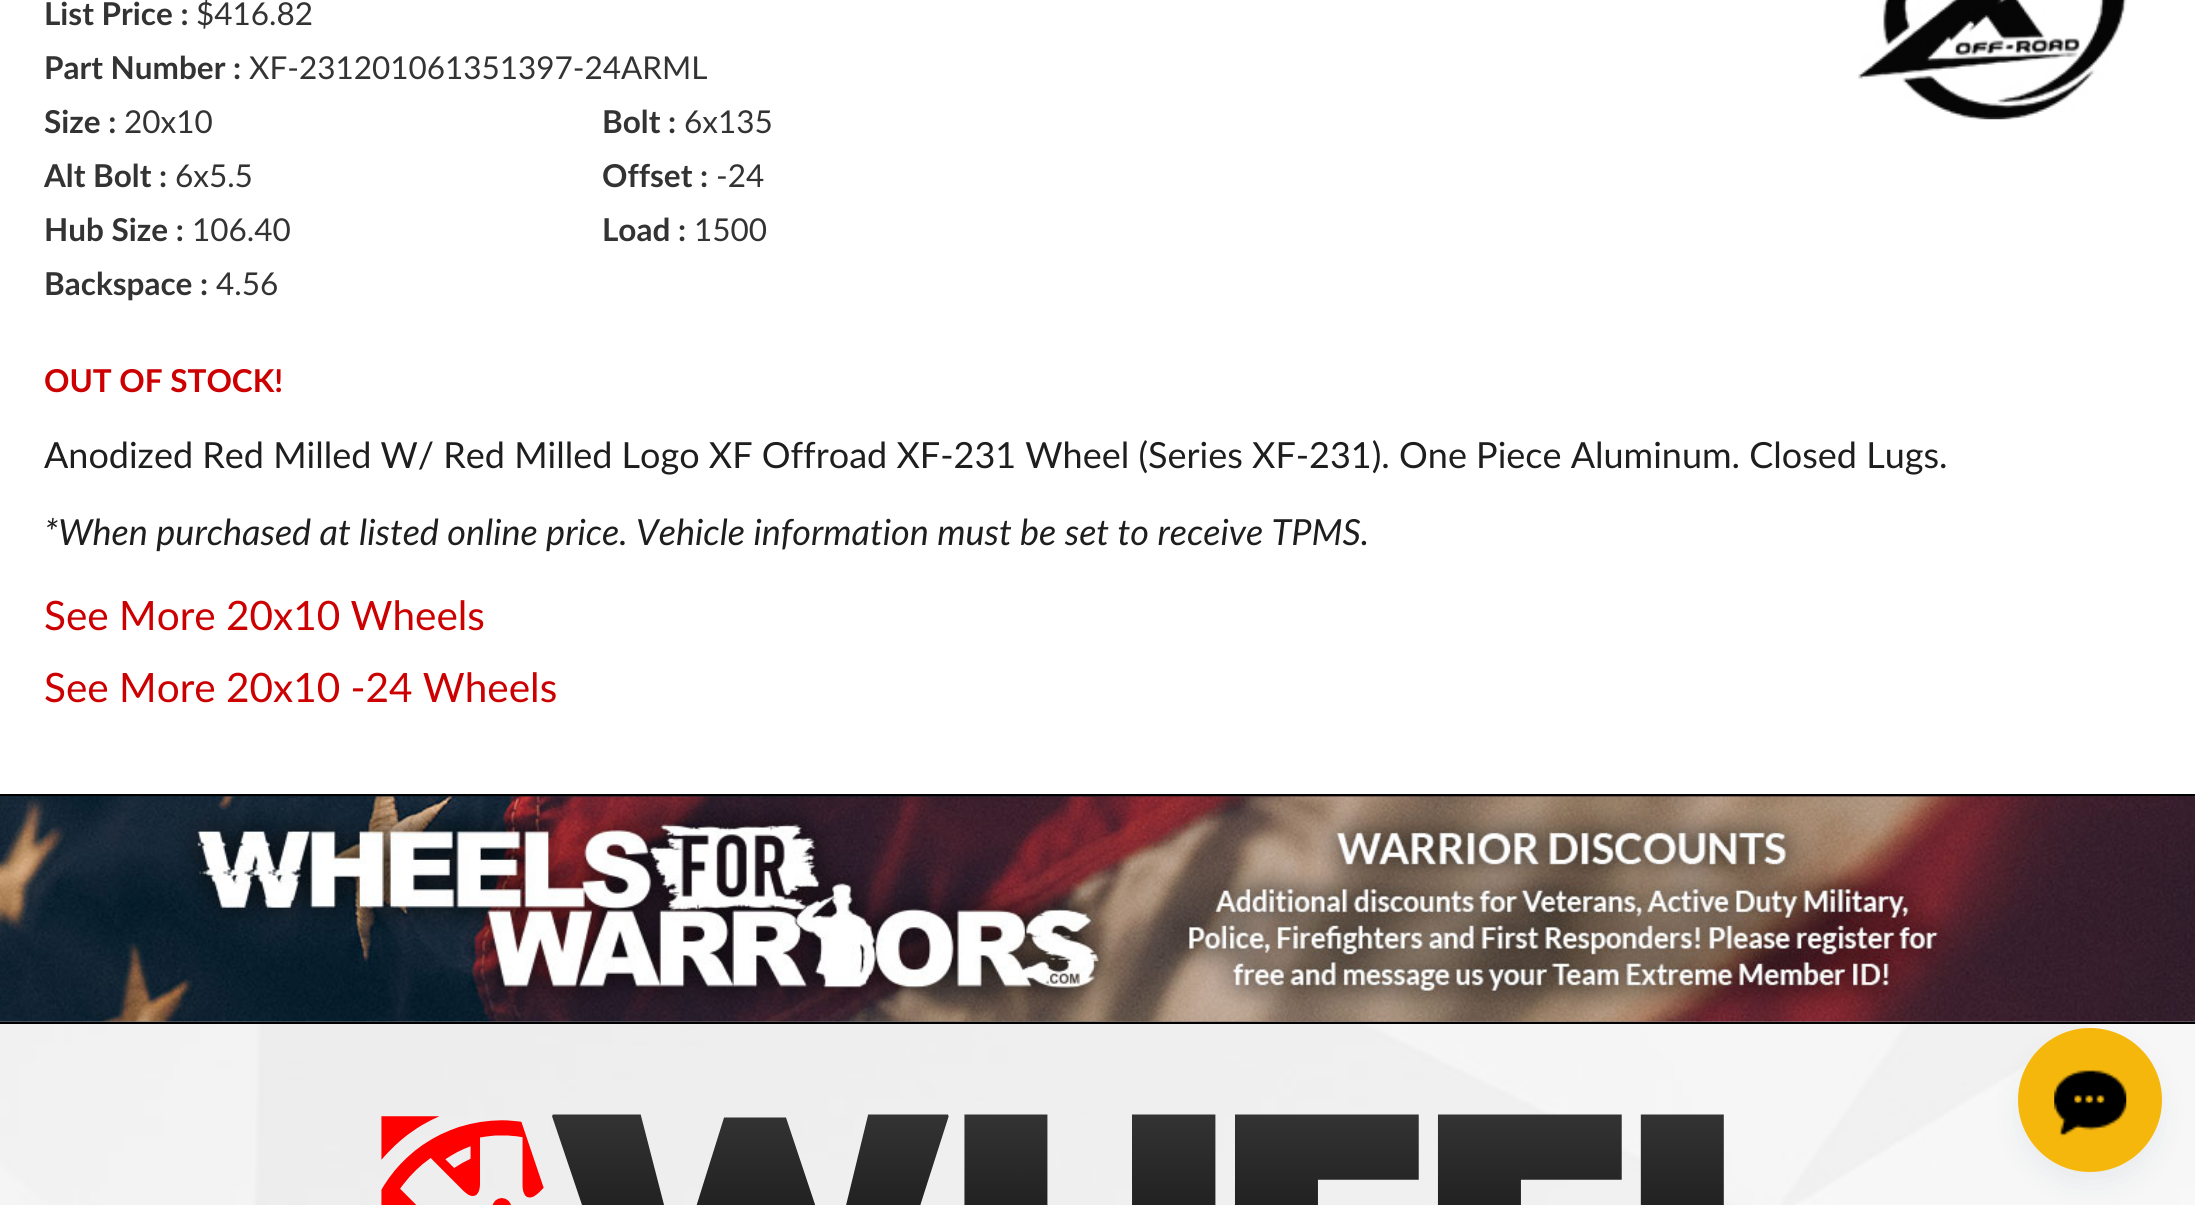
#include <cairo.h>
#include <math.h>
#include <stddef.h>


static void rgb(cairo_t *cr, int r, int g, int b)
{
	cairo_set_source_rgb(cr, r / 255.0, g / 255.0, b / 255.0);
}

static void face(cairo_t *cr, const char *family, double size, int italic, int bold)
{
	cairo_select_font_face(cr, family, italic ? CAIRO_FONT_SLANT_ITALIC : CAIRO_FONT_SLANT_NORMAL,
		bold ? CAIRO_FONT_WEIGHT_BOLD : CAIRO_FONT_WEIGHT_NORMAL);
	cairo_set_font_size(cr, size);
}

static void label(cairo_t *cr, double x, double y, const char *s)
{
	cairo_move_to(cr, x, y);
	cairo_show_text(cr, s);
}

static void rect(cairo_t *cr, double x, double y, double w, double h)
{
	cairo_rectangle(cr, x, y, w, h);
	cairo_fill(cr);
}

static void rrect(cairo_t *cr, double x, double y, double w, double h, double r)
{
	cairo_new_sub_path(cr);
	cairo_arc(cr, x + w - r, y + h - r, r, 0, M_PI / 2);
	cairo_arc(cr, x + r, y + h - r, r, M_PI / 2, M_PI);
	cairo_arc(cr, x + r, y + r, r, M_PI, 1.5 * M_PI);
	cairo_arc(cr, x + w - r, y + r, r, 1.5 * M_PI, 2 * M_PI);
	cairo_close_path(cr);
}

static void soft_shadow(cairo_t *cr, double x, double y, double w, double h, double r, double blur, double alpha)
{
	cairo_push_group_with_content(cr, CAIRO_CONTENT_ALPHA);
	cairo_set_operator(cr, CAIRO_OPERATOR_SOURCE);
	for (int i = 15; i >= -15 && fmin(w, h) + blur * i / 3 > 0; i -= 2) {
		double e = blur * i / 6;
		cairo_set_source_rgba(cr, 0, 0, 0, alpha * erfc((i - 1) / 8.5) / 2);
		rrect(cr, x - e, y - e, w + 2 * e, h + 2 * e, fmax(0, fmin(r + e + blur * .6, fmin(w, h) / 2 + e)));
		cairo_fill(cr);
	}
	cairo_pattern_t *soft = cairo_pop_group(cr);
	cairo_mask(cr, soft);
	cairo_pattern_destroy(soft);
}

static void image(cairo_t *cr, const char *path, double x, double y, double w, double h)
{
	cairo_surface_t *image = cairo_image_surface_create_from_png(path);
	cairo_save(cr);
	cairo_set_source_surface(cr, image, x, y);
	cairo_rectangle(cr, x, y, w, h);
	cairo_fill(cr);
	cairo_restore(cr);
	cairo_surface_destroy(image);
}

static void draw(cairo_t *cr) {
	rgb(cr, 255, 255, 255);
	cairo_paint(cr);
	image(cr, "image0.png", 0, 1021, 2195, 184);
	face(cr, "Lato", 31.5, 0, 1);
	rgb(cr, 51, 51, 51);
	label(cr, 44, 25, "List Price :");
	face(cr, "Lato", 31.5, 0, 0);
	label(cr, 196, 25, "$416.82");
	face(cr, "Lato", 31.5, 0, 1);
	label(cr, 44, 79, "Part Number :");
	face(cr, "Lato", 31.5, 0, 0);
	label(cr, 249, 79, "XF-231201061351397-24ARML");
	face(cr, "Lato", 31.5, 0, 1);
	label(cr, 44, 133, "Size :");
	face(cr, "Lato", 31.5, 0, 0);
	label(cr, 124, 133, "20x10");
	face(cr, "Lato", 31.5, 0, 1);
	label(cr, 602, 133, "Bolt :");
	face(cr, "Lato", 31.5, 0, 0);
	label(cr, 684, 133, "6x135");
	face(cr, "Lato", 31.5, 0, 1);
	label(cr, 44, 187, "Alt Bolt :");
	face(cr, "Lato", 31.5, 0, 0);
	label(cr, 175, 187, "6x5.5");
	face(cr, "Lato", 31.5, 0, 1);
	label(cr, 602, 187, "Offset :");
	face(cr, "Lato", 31.5, 0, 0);
	label(cr, 716, 187, "-24");
	face(cr, "Lato", 31.5, 0, 1);
	label(cr, 44, 241, "Hub Size :");
	face(cr, "Lato", 31.5, 0, 0);
	label(cr, 192, 241, "106.40");
	face(cr, "Lato", 31.5, 0, 1);
	label(cr, 602, 241, "Load :");
	face(cr, "Lato", 31.5, 0, 0);
	label(cr, 694, 241, "1500");
	face(cr, "Lato", 31.5, 0, 1);
	label(cr, 44, 295, "Backspace :");
	face(cr, "Lato", 31.5, 0, 0);
	label(cr, 216, 295, "4.56");
	image(cr, "image1.png", 1858, 0, 269, 120);
	face(cr, "Lato", 31.5, 0, 1);
	rgb(cr, 204, 0, 0);
	label(cr, 44, 392, "OUT OF STOCK!");
	face(cr, "Lato", 36, 0, 0);
	rgb(cr, 30, 30, 30);
	label(cr, 44, 468, "Anodized Red Milled W/ Red Milled Logo XF Offroad XF-231 Wheel (Series XF-231). One Piece Aluminum. Closed Lugs.");
	face(cr, "Lato", 36, 1, 0);
	label(cr, 44, 545, "*When purchased at listed online price. Vehicle information must be set to receive TPMS.");
	face(cr, "Lato", 40.5, 0, 0);
	rgb(cr, 204, 0, 0);
	label(cr, 44, 630, "See More 20x10 Wheels");
	label(cr, 44, 702, "See More 20x10 -24 Wheels");
	image(cr, "image2.png", 0, 796, 2195, 226);
	rgb(cr, 0, 0, 0);
	rect(cr, 0, 794, 2195, 2);
	cairo_set_source_rgba(cr, 1, 1, 1, 0.65);
	rect(cr, 0, 1024, 2195, 181);
	rgb(cr, 0, 0, 0);
	rect(cr, 0, 1022, 2195, 2);
	image(cr, "image3.png", 381, 1114, 1343, 91);
	rgb(cr, 75, 103, 124);
	soft_shadow(cr, 2027, 1051, 126, 126, 63, 17, 0.13);
	rgb(cr, 246, 183, 13);
	cairo_arc(cr, 2090, 1100, 72, 0, 2 * M_PI);
	cairo_fill(cr);
	image(cr, "image4.png", 2054, 1070, 73, 67);
}

int main(void) {
	cairo_surface_t *surface = cairo_image_surface_create(CAIRO_FORMAT_RGB24, 2195, 1205);
	cairo_t *cr = cairo_create(surface);
	cairo_font_options_t *options = cairo_font_options_create();
	cairo_font_options_set_hint_metrics(options, CAIRO_HINT_METRICS_OFF);
	cairo_font_options_set_hint_style(options, CAIRO_HINT_STYLE_NONE);
	cairo_set_font_options(cr, options);
	cairo_set_miter_limit(cr, 4);
	draw(cr);
	cairo_surface_write_to_png(surface, "render.png");
	cairo_font_options_destroy(options);
	cairo_destroy(cr);
	cairo_surface_destroy(surface);
	return 0;
}
